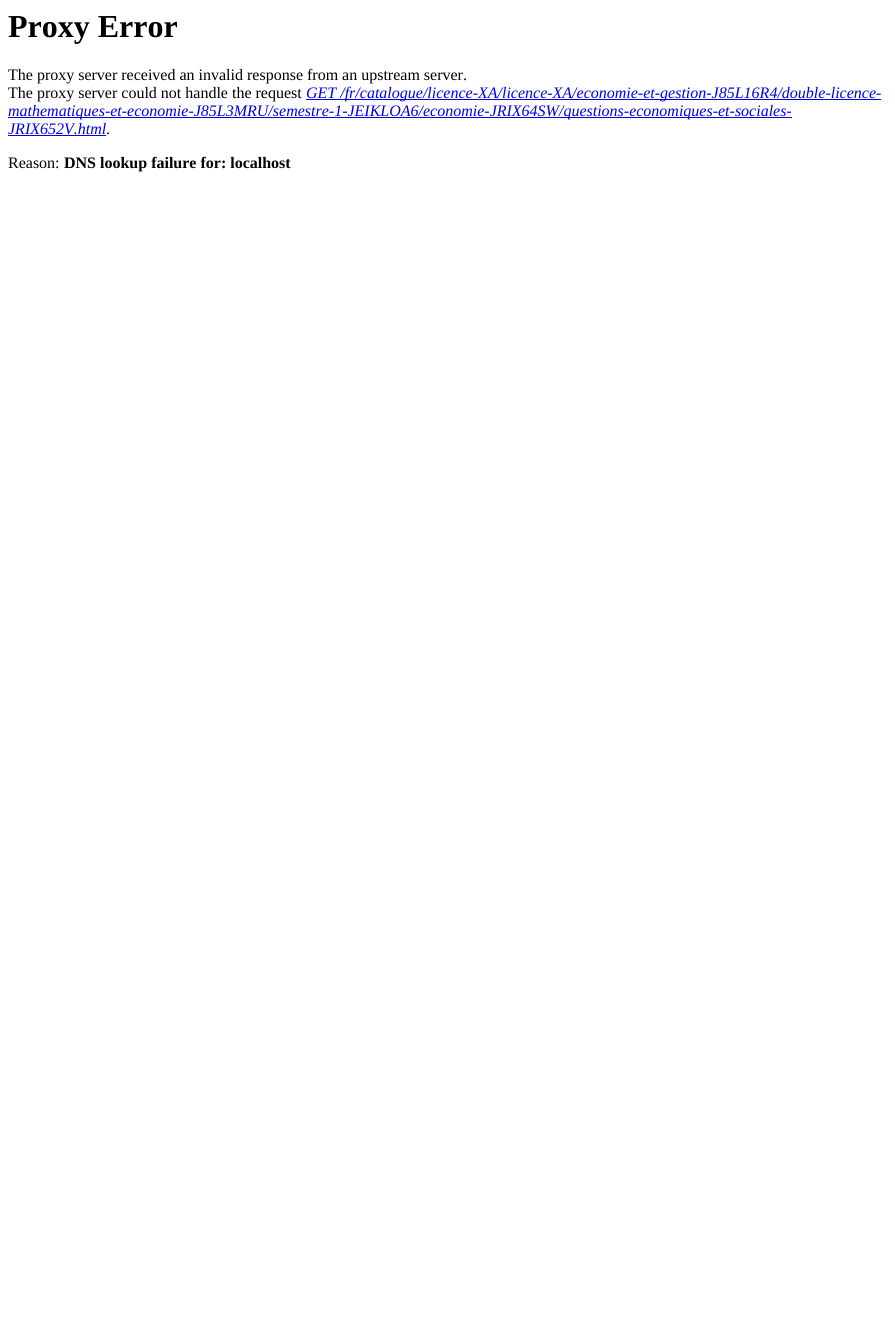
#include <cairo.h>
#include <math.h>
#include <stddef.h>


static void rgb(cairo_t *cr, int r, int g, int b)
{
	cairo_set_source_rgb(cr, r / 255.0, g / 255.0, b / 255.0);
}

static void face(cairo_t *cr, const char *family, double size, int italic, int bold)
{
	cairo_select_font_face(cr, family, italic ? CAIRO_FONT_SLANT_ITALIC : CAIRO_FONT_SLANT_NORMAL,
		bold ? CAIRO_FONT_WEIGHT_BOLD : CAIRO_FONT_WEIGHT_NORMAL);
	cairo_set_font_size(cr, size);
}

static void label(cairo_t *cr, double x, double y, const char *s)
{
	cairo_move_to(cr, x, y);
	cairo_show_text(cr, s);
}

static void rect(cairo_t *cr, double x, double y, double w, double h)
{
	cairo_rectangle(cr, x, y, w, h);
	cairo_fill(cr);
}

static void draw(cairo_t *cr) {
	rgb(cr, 255, 255, 255);
	cairo_paint(cr);
	face(cr, "Liberation Serif", 32, 0, 1);
	rgb(cr, 0, 0, 0);
	label(cr, 8, 37, "Proxy Error");
	face(cr, "Liberation Serif", 16, 0, 0);
	label(cr, 8, 80, "The proxy server received an invalid response from an upstream server.");
	label(cr, 8, 98, "The proxy server could not handle the request");
	rgb(cr, 0, 0, 238);
	rect(cr, 306, 99, 575, 1);
	face(cr, "Liberation Serif", 16, 1, 0);
	label(cr, 306, 98, "GET /fr/catalogue/licence-XA/licence-XA/economie-et-gestion-J85L16R4/double-licence-");
	rect(cr, 8, 117, 784, 1);
	label(cr, 8, 116, "mathematiques-et-economie-J85L3MRU/semestre-1-JEIKLOA6/economie-JRIX64SW/questions-economiques-et-sociales-");
	label(cr, 8, 134, "JRIX652V.html");
	rect(cr, 8, 135, 98, 1);
	face(cr, "Liberation Serif", 16, 0, 0);
	rgb(cr, 0, 0, 0);
	label(cr, 106, 134, ".");
	label(cr, 8, 168, "Reason:");
	face(cr, "Liberation Serif", 16, 0, 1);
	label(cr, 64, 168, "DNS lookup failure for: localhost");
}

int main(void) {
	cairo_surface_t *surface = cairo_image_surface_create(CAIRO_FORMAT_RGB24, 895, 1337);
	cairo_t *cr = cairo_create(surface);
	cairo_font_options_t *options = cairo_font_options_create();
	cairo_font_options_set_hint_metrics(options, CAIRO_HINT_METRICS_OFF);
	cairo_font_options_set_hint_style(options, CAIRO_HINT_STYLE_NONE);
	cairo_set_font_options(cr, options);
	cairo_set_miter_limit(cr, 4);
	draw(cr);
	cairo_surface_write_to_png(surface, "render.png");
	cairo_font_options_destroy(options);
	cairo_destroy(cr);
	cairo_surface_destroy(surface);
	return 0;
}
